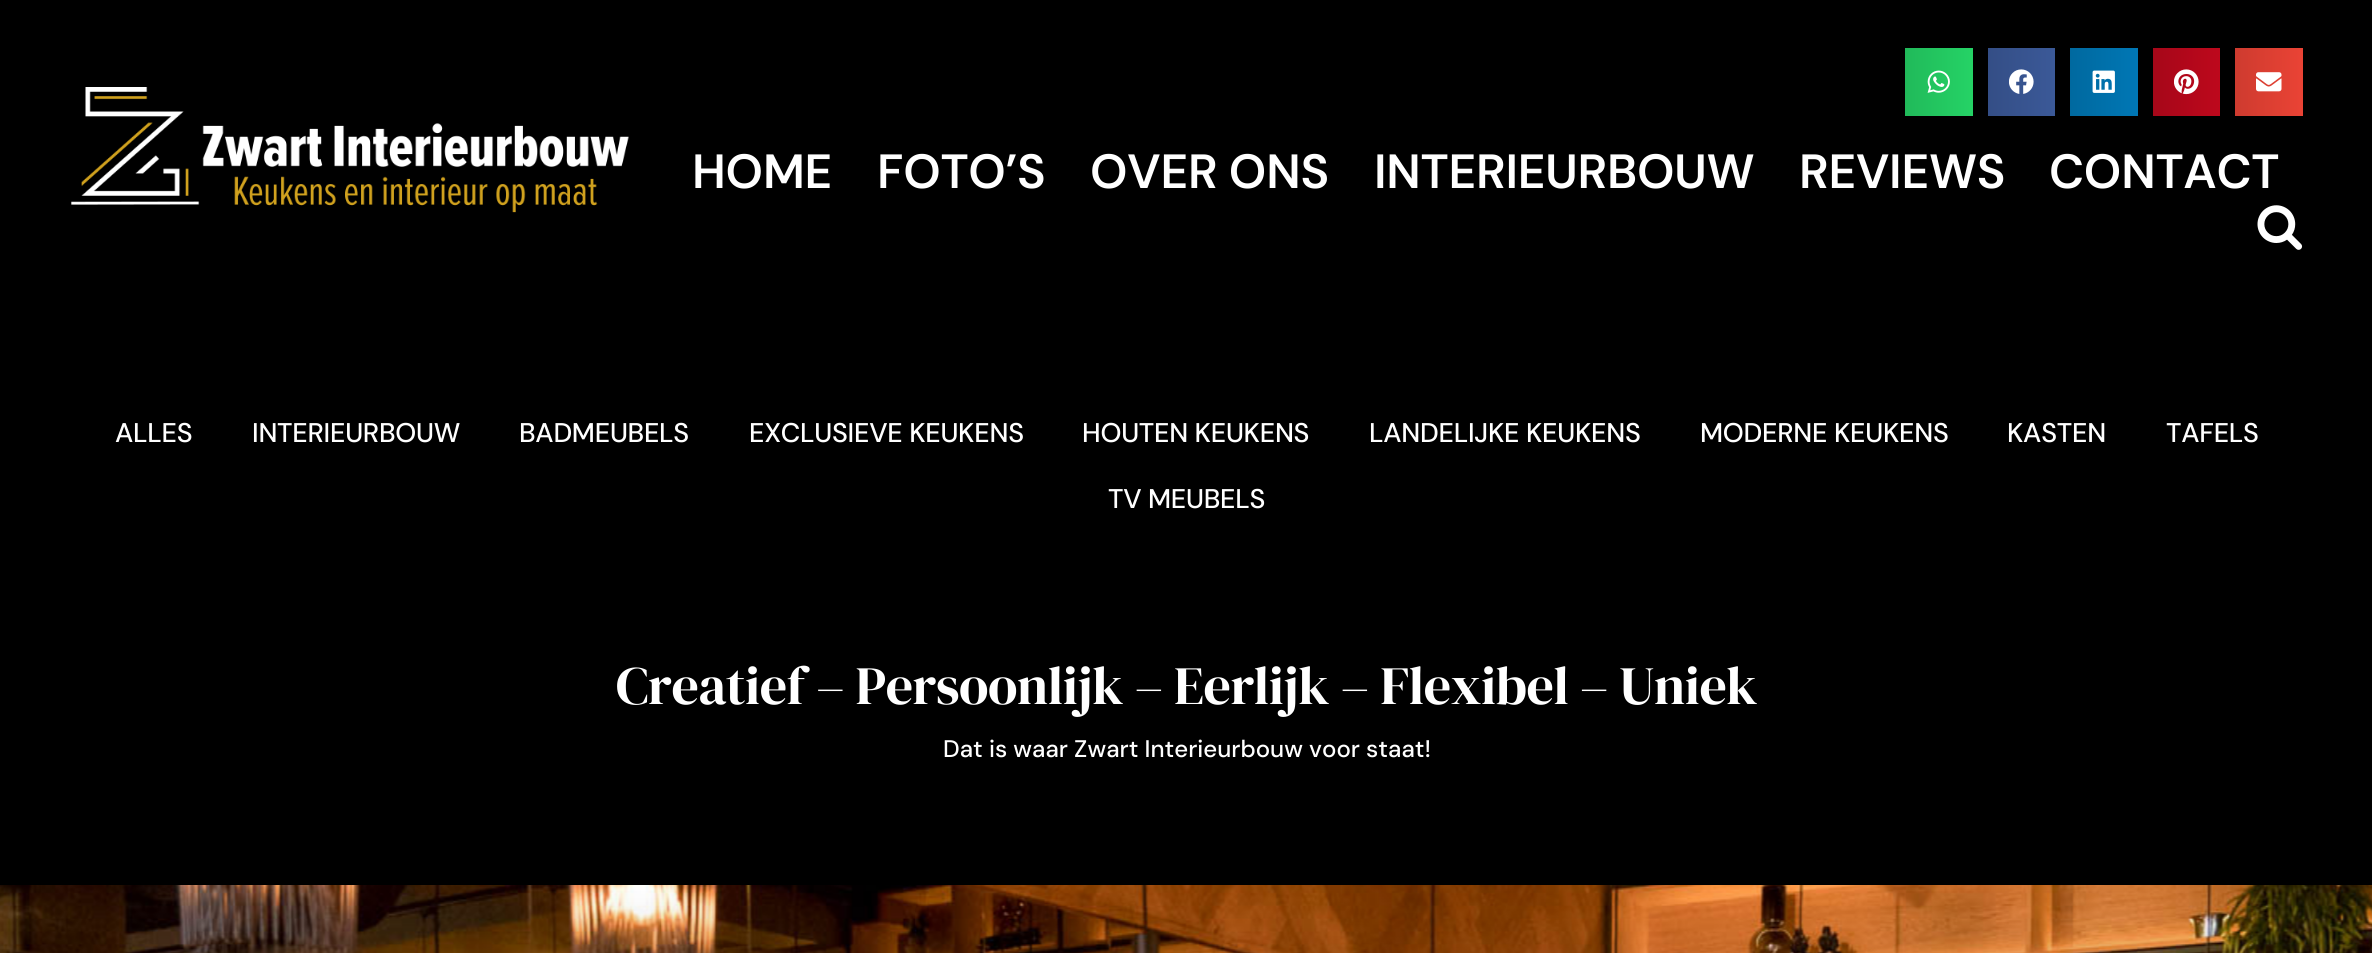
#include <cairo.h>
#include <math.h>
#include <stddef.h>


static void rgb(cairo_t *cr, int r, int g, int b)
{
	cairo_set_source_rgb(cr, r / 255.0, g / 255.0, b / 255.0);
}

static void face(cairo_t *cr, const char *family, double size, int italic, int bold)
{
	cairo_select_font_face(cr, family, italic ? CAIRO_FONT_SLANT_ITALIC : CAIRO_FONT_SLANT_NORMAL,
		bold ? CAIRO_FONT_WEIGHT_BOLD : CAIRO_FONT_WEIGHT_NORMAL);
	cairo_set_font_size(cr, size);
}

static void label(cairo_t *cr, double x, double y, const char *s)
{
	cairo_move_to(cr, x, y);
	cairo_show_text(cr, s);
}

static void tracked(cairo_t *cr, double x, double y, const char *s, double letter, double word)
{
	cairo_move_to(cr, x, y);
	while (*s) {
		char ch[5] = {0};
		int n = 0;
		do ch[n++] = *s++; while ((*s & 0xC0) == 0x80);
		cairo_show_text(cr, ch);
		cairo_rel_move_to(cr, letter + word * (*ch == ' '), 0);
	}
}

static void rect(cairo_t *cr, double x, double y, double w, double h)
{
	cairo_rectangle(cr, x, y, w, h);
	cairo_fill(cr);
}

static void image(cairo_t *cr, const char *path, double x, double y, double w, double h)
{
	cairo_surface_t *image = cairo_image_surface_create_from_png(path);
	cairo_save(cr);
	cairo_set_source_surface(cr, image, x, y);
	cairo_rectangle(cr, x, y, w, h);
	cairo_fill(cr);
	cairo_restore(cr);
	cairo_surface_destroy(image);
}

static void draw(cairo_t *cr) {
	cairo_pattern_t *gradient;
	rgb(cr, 0, 0, 0);
	cairo_paint(cr);
	image(cr, "image0.png", 71, 87, 558, 126);
	gradient = cairo_pattern_create_linear(1905, 82, 1973, 82);
	cairo_pattern_add_color_stop_rgba(gradient, 0, 0.129, 0.729, 0.353, 1);
	cairo_pattern_add_color_stop_rgba(gradient, 1, 0.145, 0.827, 0.4, 1);
	cairo_set_source(cr, gradient);
	cairo_pattern_destroy(gradient);
	rect(cr, 1905, 48, 68, 68);
	image(cr, "image1.png", 1927, 70, 23, 23);
	gradient = cairo_pattern_create_linear(1988, 82, 2055, 82);
	cairo_pattern_add_color_stop_rgba(gradient, 0, 0.204, 0.306, 0.525, 1);
	cairo_pattern_add_color_stop_rgba(gradient, 1, 0.231, 0.349, 0.596, 1);
	cairo_set_source(cr, gradient);
	cairo_pattern_destroy(gradient);
	rect(cr, 1988, 48, 67, 68);
	image(cr, "image2.png", 2009, 69, 25, 25);
	gradient = cairo_pattern_create_linear(2070, 82, 2138, 82);
	cairo_pattern_add_color_stop_rgba(gradient, 0, 0, 0.412, 0.624, 1);
	cairo_pattern_add_color_stop_rgba(gradient, 1, 0, 0.467, 0.71, 1);
	cairo_set_source(cr, gradient);
	cairo_pattern_destroy(gradient);
	rect(cr, 2070, 48, 68, 68);
	image(cr, "image3.png", 2092, 70, 23, 23);
	gradient = cairo_pattern_create_linear(2153, 82, 2220, 82);
	cairo_pattern_add_color_stop_rgba(gradient, 0, 0.651, 0.027, 0.098, 1);
	cairo_pattern_add_color_stop_rgba(gradient, 1, 0.741, 0.031, 0.11, 1);
	cairo_set_source(cr, gradient);
	cairo_pattern_destroy(gradient);
	rect(cr, 2153, 48, 67, 68);
	image(cr, "image4.png", 2174, 69, 25, 26);
	gradient = cairo_pattern_create_linear(2235, 82, 2303, 82);
	cairo_pattern_add_color_stop_rgba(gradient, 0, 0.808, 0.231, 0.184, 1);
	cairo_pattern_add_color_stop_rgba(gradient, 1, 0.918, 0.263, 0.208, 1);
	cairo_set_source(cr, gradient);
	cairo_pattern_destroy(gradient);
	rect(cr, 2235, 48, 68, 68);
	image(cr, "image5.png", 2256, 72, 26, 20);
	face(cr, "DM Sans SemiBold", 48, 0, 0);
	rgb(cr, 255, 255, 255);
	tracked(cr, 692, 188, "HOME", -0.25, 0);
	tracked(cr, 877, 188, "FOTO’S", -0.25, 0);
	tracked(cr, 1090, 188, "OVER ONS", -0.25, 0);
	tracked(cr, 1374, 188, "INTERIEURBOUW", -0.25, 0);
	tracked(cr, 1799, 188, "REVIEWS", -0.25, 0);
	tracked(cr, 2049, 188, "CONTACT", -0.25, 0);
	image(cr, "image6.png", 2257, 205, 46, 45);
	face(cr, "DM Sans Medium", 27, 0, 0);
	tracked(cr, 115, 442, "ALLES", -0.25, 0);
	tracked(cr, 252, 442, "INTERIEURBOUW", -0.25, 0);
	tracked(cr, 519, 442, "BADMEUBELS", -0.25, 0);
	tracked(cr, 749, 442, "EXCLUSIEVE KEUKENS", -0.25, 0);
	tracked(cr, 1082, 442, "HOUTEN KEUKENS", -0.25, 0);
	tracked(cr, 1369, 442, "LANDELIJKE KEUKENS", -0.25, 0);
	tracked(cr, 1700, 442, "MODERNE KEUKENS", -0.25, 0);
	tracked(cr, 2007, 442, "KASTEN", -0.25, 0);
	tracked(cr, 2166, 442, "TAFELS", -0.25, 0);
	tracked(cr, 1108, 508, "TV MEUBELS", -0.25, 0);
	face(cr, "DM Serif Display", 54, 0, 0);
	tracked(cr, 616, 704, "Creatief – Persoonlijk – Eerlijk – Flexibel – Uniek", -0.45, 0);
	face(cr, "DM Sans Medium", 24, 0, 0);
	label(cr, 943, 757, "Dat is waar Zwart Interieurbouw voor staat!");
	image(cr, "image7.png", 0, 885, 2372, 68);
}

int main(void) {
	cairo_surface_t *surface = cairo_image_surface_create(CAIRO_FORMAT_RGB24, 2372, 953);
	cairo_t *cr = cairo_create(surface);
	cairo_font_options_t *options = cairo_font_options_create();
	cairo_font_options_set_hint_metrics(options, CAIRO_HINT_METRICS_OFF);
	cairo_font_options_set_hint_style(options, CAIRO_HINT_STYLE_NONE);
	cairo_set_font_options(cr, options);
	cairo_set_miter_limit(cr, 4);
	draw(cr);
	cairo_surface_write_to_png(surface, "render.png");
	cairo_font_options_destroy(options);
	cairo_destroy(cr);
	cairo_surface_destroy(surface);
	return 0;
}
